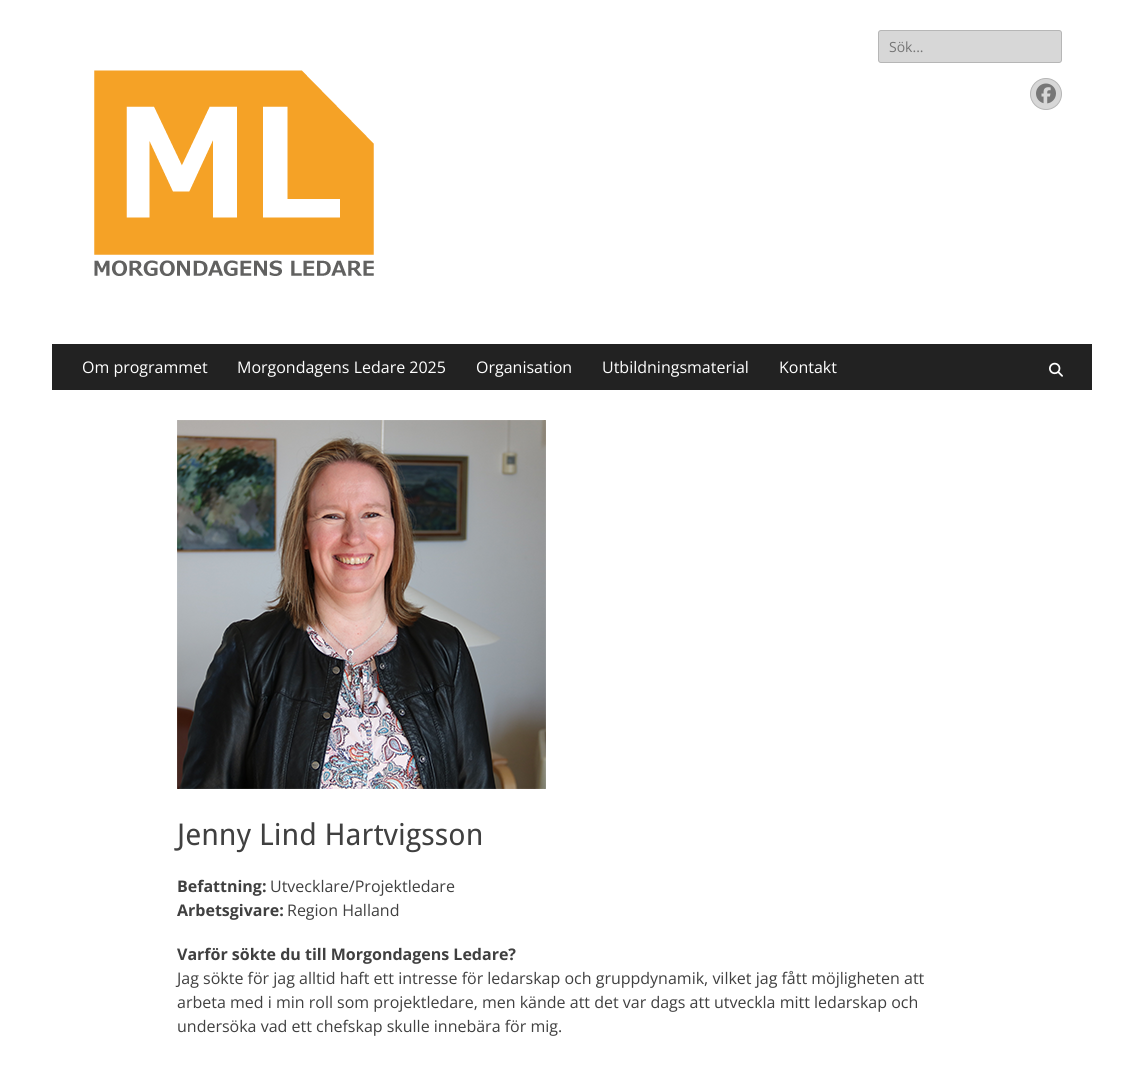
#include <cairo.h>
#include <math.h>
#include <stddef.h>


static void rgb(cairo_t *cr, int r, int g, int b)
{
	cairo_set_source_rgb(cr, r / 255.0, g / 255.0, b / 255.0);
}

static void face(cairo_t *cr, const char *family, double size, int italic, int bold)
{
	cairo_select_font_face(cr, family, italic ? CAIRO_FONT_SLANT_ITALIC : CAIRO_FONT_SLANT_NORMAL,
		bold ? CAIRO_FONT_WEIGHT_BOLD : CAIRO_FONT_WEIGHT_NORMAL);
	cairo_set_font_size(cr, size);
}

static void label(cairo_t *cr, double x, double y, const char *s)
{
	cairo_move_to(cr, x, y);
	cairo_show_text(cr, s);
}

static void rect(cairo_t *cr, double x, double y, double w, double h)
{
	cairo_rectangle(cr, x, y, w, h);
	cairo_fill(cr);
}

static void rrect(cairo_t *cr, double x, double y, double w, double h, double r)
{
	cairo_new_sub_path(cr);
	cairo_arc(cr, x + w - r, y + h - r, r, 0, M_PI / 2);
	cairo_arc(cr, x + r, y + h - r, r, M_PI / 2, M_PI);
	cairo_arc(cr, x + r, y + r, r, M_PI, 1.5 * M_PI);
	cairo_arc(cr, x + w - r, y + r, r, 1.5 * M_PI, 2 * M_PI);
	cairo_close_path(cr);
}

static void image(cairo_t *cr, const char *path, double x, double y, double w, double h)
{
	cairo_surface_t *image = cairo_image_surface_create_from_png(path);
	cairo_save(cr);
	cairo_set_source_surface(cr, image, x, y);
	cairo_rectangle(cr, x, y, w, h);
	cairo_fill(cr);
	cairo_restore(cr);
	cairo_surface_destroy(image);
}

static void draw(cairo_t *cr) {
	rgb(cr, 255, 255, 255);
	cairo_paint(cr);
	rgb(cr, 215, 215, 215);
	rrect(cr, 878.5, 30.5, 183, 32, 2.5);
	cairo_fill_preserve(cr);
	rgb(cr, 182, 182, 182);
	cairo_set_line_width(cr, 1);
	cairo_stroke(cr);
	face(cr, "Open Sans", 14, 0, 0);
	rgb(cr, 117, 117, 117);
	label(cr, 889, 52, "Sök...");
	rgb(cr, 215, 215, 215);
	cairo_new_path(cr);
	cairo_arc(cr, 1046, 94, 15.5, 0, 2 * M_PI);
	cairo_fill_preserve(cr);
	rgb(cr, 182, 182, 182);
	cairo_stroke(cr);
	image(cr, "image0.png", 1036, 83, 20, 21);
	image(cr, "image1.png", 94, 70, 280, 206);
	rgb(cr, 34, 34, 34);
	rect(cr, 52, 344, 1040, 46);
	face(cr, "Open Sans", 16, 0, 0);
	rgb(cr, 255, 255, 255);
	label(cr, 82, 373, "Om programmet");
	label(cr, 237, 373, "Morgondagens Ledare 2025");
	label(cr, 476, 373, "Organisation");
	label(cr, 602, 373, "Utbildningsmaterial");
	label(cr, 779, 373, "Kontakt");
	image(cr, "image2.png", 1049, 362, 14, 15);
	image(cr, "image3.png", 177, 420, 369, 369);
	face(cr, "Droid Sans", 30, 0, 0);
	rgb(cr, 64, 64, 64);
	label(cr, 177, 845, "Jenny Lind Hartvigsson");
	face(cr, "Open Sans", 16, 0, 1);
	label(cr, 177, 892, "Befattning:");
	face(cr, "Open Sans", 16, 0, 0);
	label(cr, 270, 892, "Utvecklare/Projektledare");
	face(cr, "Open Sans", 16, 0, 1);
	label(cr, 177, 916, "Arbetsgivare:");
	face(cr, "Open Sans", 16, 0, 0);
	label(cr, 287, 916, "Region Halland");
	face(cr, "Open Sans", 16, 0, 1);
	label(cr, 177, 960, "Varför sökte du till Morgondagens Ledare?");
	face(cr, "Open Sans", 16, 0, 0);
	label(cr, 177, 984, "Jag sökte för jag alltid haft ett intresse för ledarskap och gruppdynamik, vilket jag fått möjligheten att");
	label(cr, 177, 1008, "arbeta med i min roll som projektledare, men kände att det var dags att utveckla mitt ledarskap och");
	label(cr, 177, 1032, "undersöka vad ett chefskap skulle innebära för mig.");
}

int main(void) {
	cairo_surface_t *surface = cairo_image_surface_create(CAIRO_FORMAT_RGB24, 1143, 1072);
	cairo_t *cr = cairo_create(surface);
	cairo_font_options_t *options = cairo_font_options_create();
	cairo_font_options_set_hint_metrics(options, CAIRO_HINT_METRICS_OFF);
	cairo_font_options_set_hint_style(options, CAIRO_HINT_STYLE_NONE);
	cairo_set_font_options(cr, options);
	cairo_set_miter_limit(cr, 4);
	draw(cr);
	cairo_surface_write_to_png(surface, "render.png");
	cairo_font_options_destroy(options);
	cairo_destroy(cr);
	cairo_surface_destroy(surface);
	return 0;
}
